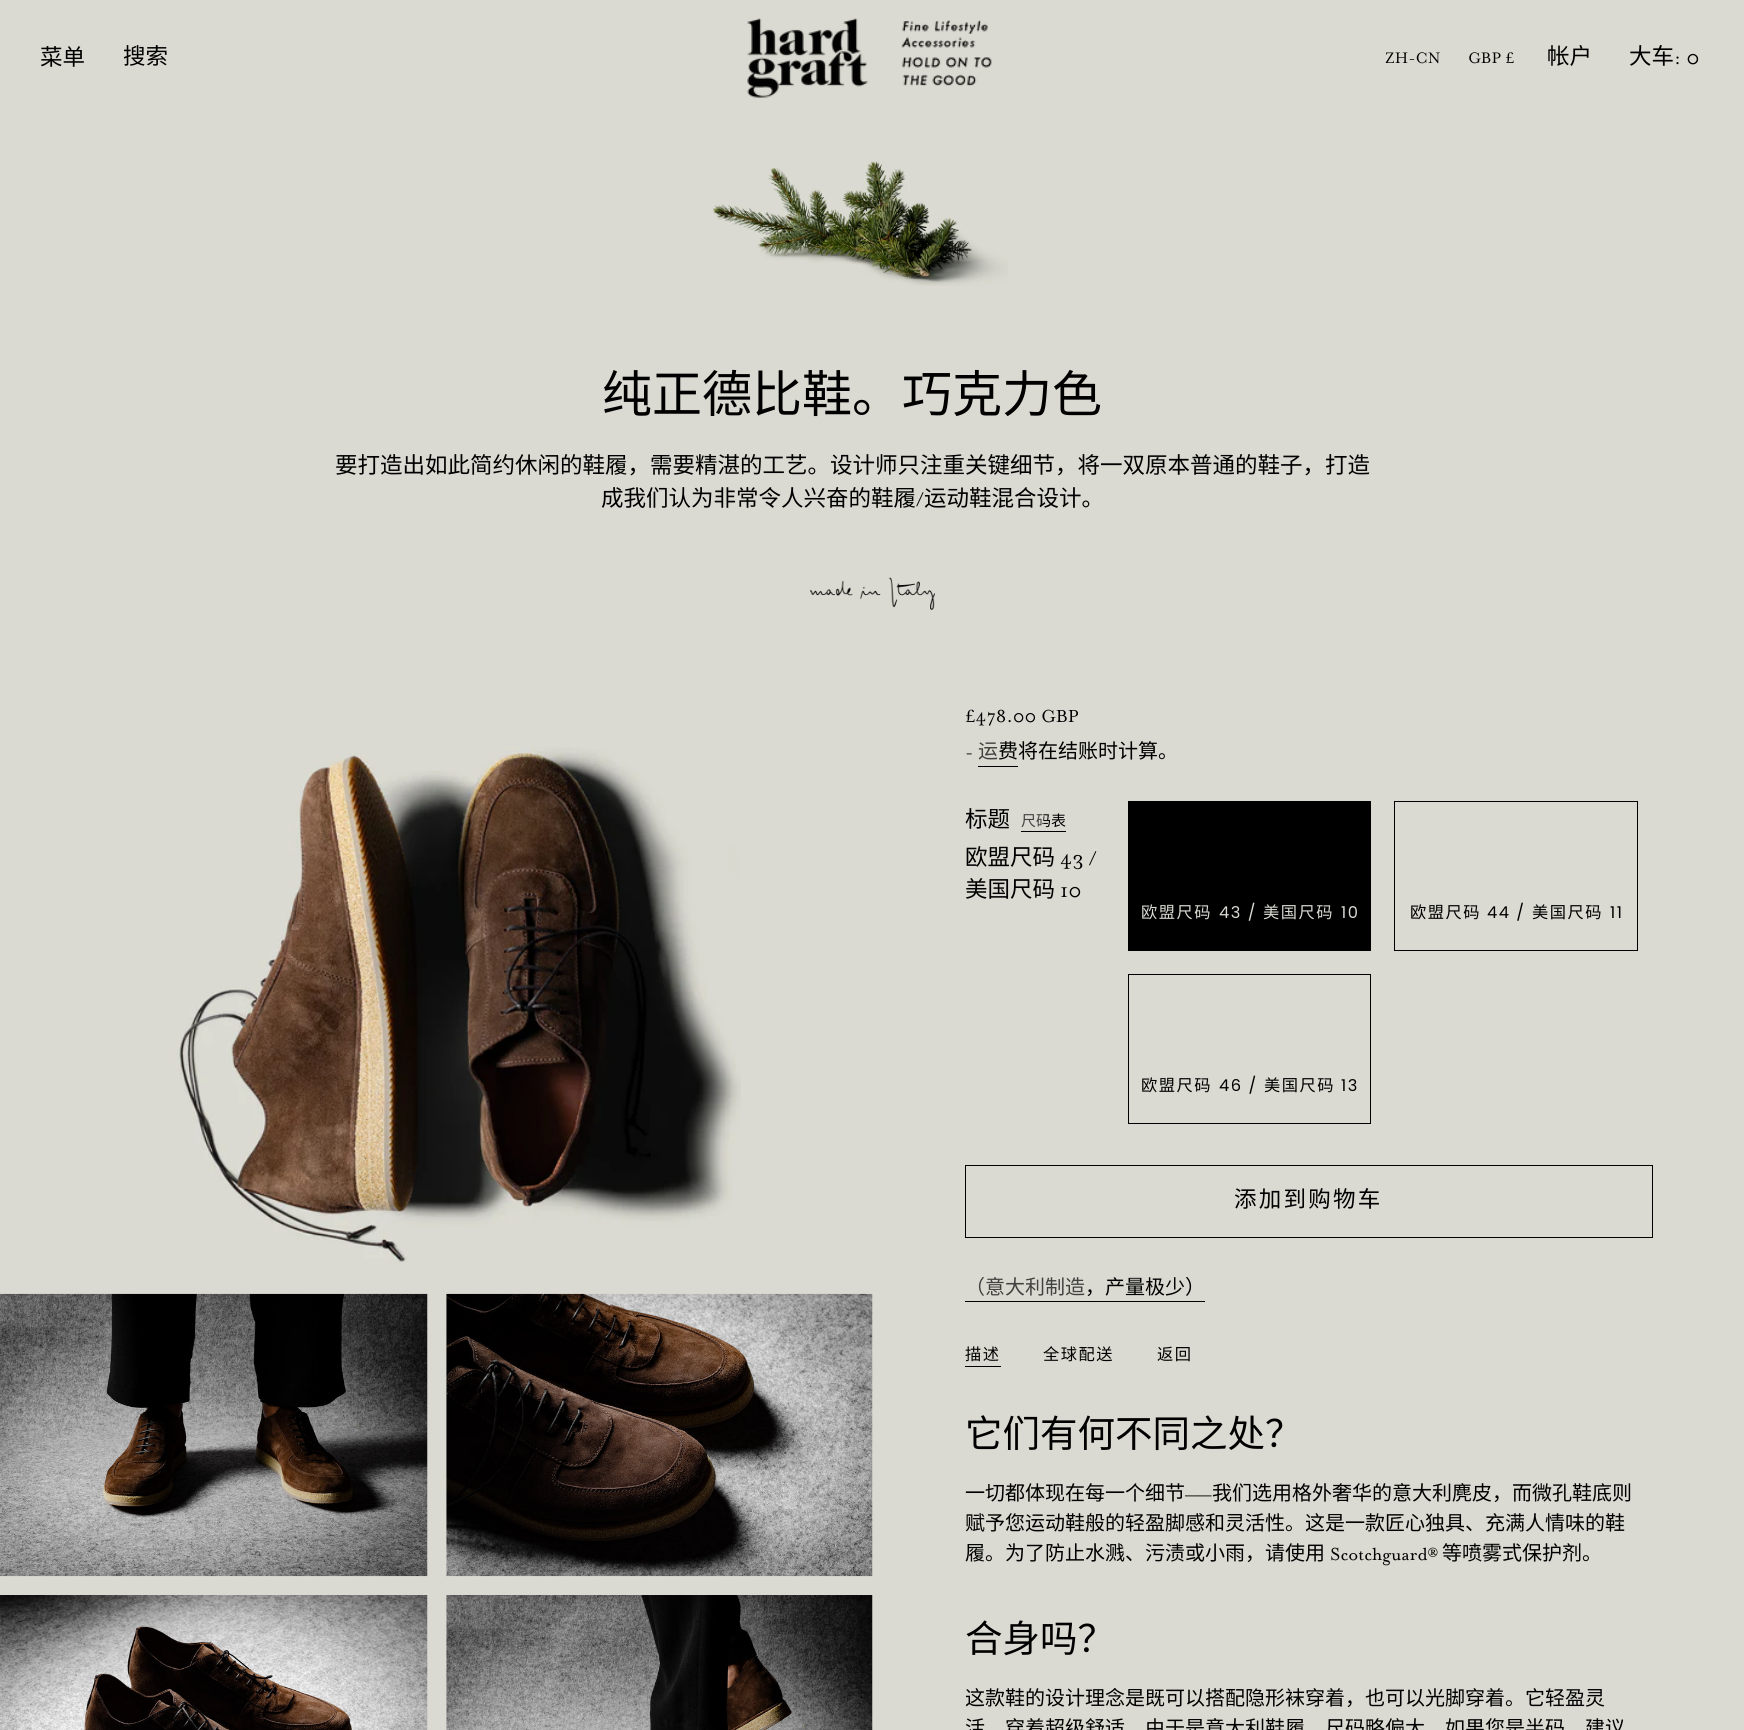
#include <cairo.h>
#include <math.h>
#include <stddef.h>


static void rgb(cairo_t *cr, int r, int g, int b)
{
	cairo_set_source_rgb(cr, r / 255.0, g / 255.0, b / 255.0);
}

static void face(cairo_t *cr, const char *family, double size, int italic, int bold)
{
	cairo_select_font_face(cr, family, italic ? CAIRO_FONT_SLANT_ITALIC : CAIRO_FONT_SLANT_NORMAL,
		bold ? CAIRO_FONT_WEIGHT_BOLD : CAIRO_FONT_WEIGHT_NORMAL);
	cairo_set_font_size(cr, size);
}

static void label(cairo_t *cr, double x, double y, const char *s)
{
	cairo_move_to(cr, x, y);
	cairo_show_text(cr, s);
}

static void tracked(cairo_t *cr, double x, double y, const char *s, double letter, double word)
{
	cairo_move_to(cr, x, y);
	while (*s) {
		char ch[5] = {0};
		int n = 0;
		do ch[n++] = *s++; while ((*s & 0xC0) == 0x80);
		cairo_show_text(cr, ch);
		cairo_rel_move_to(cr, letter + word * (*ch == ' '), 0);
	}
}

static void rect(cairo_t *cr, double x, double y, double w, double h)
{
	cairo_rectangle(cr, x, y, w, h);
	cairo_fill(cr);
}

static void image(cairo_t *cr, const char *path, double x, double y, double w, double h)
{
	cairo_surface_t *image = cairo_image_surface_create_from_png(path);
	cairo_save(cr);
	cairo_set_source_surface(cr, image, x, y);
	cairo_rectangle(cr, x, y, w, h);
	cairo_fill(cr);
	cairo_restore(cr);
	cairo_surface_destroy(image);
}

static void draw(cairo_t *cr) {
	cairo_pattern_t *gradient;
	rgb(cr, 218, 218, 210);
	cairo_paint(cr);
	face(cr, "Noto Sans CJK SC", 22.5, 0, 0);
	rgb(cr, 0, 0, 0);
	label(cr, 40, 65, "菜单");
	label(cr, 123, 64, "搜索");
	image(cr, "image0.png", 747, 18, 245, 80);
	face(cr, "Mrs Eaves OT", 17.5, 0, 0);
	label(cr, 1385, 63, "ZH-CN");
	label(cr, 1468, 63, "GBP £");
	face(cr, "Noto Sans CJK SC", 22.5, 0, 0);
	label(cr, 1547, 64, "帐户");
	label(cr, 1629, 64, "大车");
	face(cr, "Mrs Eaves OT", 22.5, 0, 0);
	label(cr, 1674, 64, ": 0");
	image(cr, "image1.png", 713, 161, 295, 125);
	face(cr, "Noto Sans CJK SC", 50, 0, 0);
	label(cr, 602, 412, "纯正德比鞋。巧克力色");
	face(cr, "Noto Sans CJK SC", 22.5, 0, 0);
	label(cr, 335, 473, "要打造出如此简约休闲的鞋履，需要精湛的工艺。设计师只注重关键细节，将一双原本普通的鞋子，打造");
	label(cr, 601, 506, "成我们认为非常令人兴奋的鞋履");
	face(cr, "Mrs Eaves OT", 22.5, 0, 0);
	label(cr, 916, 506, "/");
	face(cr, "Noto Sans CJK SC", 22.5, 0, 0);
	label(cr, 924, 506, "运动鞋混合设计。");
	image(cr, "image2.png", 810, 577, 125, 33);
	image(cr, "image3.png", 175, 747, 566, 516);
	image(cr, "image4.png", 0, 1293, 428, 284);
	image(cr, "image5.png", 446, 1293, 427, 284);
	image(cr, "image6.png", 0, 1595, 428, 135);
	image(cr, "image7.png", 446, 1595, 427, 135);
	face(cr, "Mrs Eaves OT", 20, 0, 0);
	label(cr, 965, 722, "£478.00 GBP");
	label(cr, 965, 758, "-");
	face(cr, "Noto Sans CJK SC", 20, 0, 0);
	gradient = cairo_pattern_create_linear(978, 751, 1018, 751);
	cairo_pattern_add_color_stop_rgba(gradient, 0, 0.255, 0.255, 0.247, 1);
	cairo_pattern_add_color_stop_rgba(gradient, 0.5, 0.255, 0.255, 0.247, 1);
	cairo_pattern_add_color_stop_rgba(gradient, 0.5, 0, 0, 0, 1);
	cairo_pattern_add_color_stop_rgba(gradient, 1, 0, 0, 0, 1);
	cairo_set_source(cr, gradient);
	cairo_pattern_destroy(gradient);
	label(cr, 978, 758, "运费");
	rgb(cr, 0, 0, 0);
	rect(cr, 978, 766, 40, 1);
	label(cr, 1018, 758, "将在结账时计算。");
	face(cr, "Noto Sans CJK SC", 22.5, 0, 0);
	label(cr, 965, 827, "标题");
	face(cr, "Noto Sans CJK SC", 15, 0, 0);
	gradient = cairo_pattern_create_linear(1021, 820, 1066, 820);
	cairo_pattern_add_color_stop_rgba(gradient, 0, 0.255, 0.255, 0.247, 1);
	cairo_pattern_add_color_stop_rgba(gradient, 0.5, 0.255, 0.255, 0.247, 1);
	cairo_pattern_add_color_stop_rgba(gradient, 0.5, 0, 0, 0, 1);
	cairo_pattern_add_color_stop_rgba(gradient, 1, 0, 0, 0, 1);
	cairo_set_source(cr, gradient);
	cairo_pattern_destroy(gradient);
	label(cr, 1021, 826, "尺码表");
	rgb(cr, 0, 0, 0);
	rect(cr, 1021, 831, 45, 1);
	face(cr, "Noto Sans CJK SC", 22.5, 0, 0);
	label(cr, 965, 865, "欧盟尺码");
	face(cr, "Mrs Eaves OT", 22.5, 0, 0);
	label(cr, 1060, 865, "43 /");
	face(cr, "Noto Sans CJK SC", 22.5, 0, 0);
	label(cr, 965, 897, "美国尺码");
	face(cr, "Mrs Eaves OT", 22.5, 0, 0);
	label(cr, 1060, 897, "10");
	rect(cr, 1128, 801, 243, 150);
	face(cr, "Noto Sans CJK SC", 16.25, 0, 0);
	rgb(cr, 218, 218, 210);
	tracked(cr, 1141, 918, "欧盟尺码", 1.5, 0);
	face(cr, "Poppins", 16.25, 0, 0);
	tracked(cr, 1219, 918, "43 /", 1.5, 0);
	face(cr, "Noto Sans CJK SC", 16.25, 0, 0);
	tracked(cr, 1263, 918, "美国尺码", 1.5, 0);
	face(cr, "Poppins", 16.25, 0, 0);
	tracked(cr, 1341, 918, "10", 1.5, 0);
	cairo_rectangle(cr, 1394.5, 801.5, 243, 149);
	rgb(cr, 0, 0, 0);
	cairo_set_line_width(cr, 1);
	cairo_stroke(cr);
	face(cr, "Noto Sans CJK SC", 16.25, 0, 0);
	tracked(cr, 1410, 918, "欧盟尺码", 1.5, 0);
	face(cr, "Poppins", 16.25, 0, 0);
	tracked(cr, 1487, 918, "44 /", 1.5, 0);
	face(cr, "Noto Sans CJK SC", 16.25, 0, 0);
	tracked(cr, 1532, 918, "美国尺码", 1.5, 0);
	face(cr, "Poppins", 16.25, 0, 0);
	tracked(cr, 1610, 918, "11", 1.5, 0);
	cairo_rectangle(cr, 1128.5, 974.5, 242, 149);
	cairo_stroke(cr);
	face(cr, "Noto Sans CJK SC", 16.25, 0, 0);
	tracked(cr, 1141, 1091, "欧盟尺码", 1.5, 0);
	face(cr, "Poppins", 16.25, 0, 0);
	tracked(cr, 1219, 1091, "46 /", 1.5, 0);
	face(cr, "Noto Sans CJK SC", 16.25, 0, 0);
	tracked(cr, 1264, 1091, "美国尺码", 1.5, 0);
	face(cr, "Poppins", 16.25, 0, 0);
	tracked(cr, 1341, 1091, "13", 1.5, 0);
	cairo_rectangle(cr, 965.5, 1165.5, 687, 72);
	cairo_stroke(cr);
	face(cr, "Noto Sans CJK SC", 22.5, 0, 0);
	tracked(cr, 1234, 1207, "添加到购物车", 2.25, 0);
	face(cr, "Noto Sans CJK SC", 20, 0, 0);
	gradient = cairo_pattern_create_linear(965, 1287, 1205, 1287);
	cairo_pattern_add_color_stop_rgba(gradient, 0, 0.255, 0.255, 0.247, 1);
	cairo_pattern_add_color_stop_rgba(gradient, 0.5, 0.255, 0.255, 0.247, 1);
	cairo_pattern_add_color_stop_rgba(gradient, 0.5, 0, 0, 0, 1);
	cairo_pattern_add_color_stop_rgba(gradient, 1, 0, 0, 0, 1);
	cairo_set_source(cr, gradient);
	cairo_pattern_destroy(gradient);
	label(cr, 965, 1294, "（意大利制造，产量极少）");
	rgb(cr, 0, 0, 0);
	rect(cr, 965, 1301, 240, 1);
	face(cr, "Noto Sans CJK SC", 16.25, 0, 0);
	tracked(cr, 965, 1360, "描述", 1.5, 0);
	rect(cr, 965, 1366, 36, 1);
	tracked(cr, 1043, 1360, "全球配送", 1.5, 0);
	tracked(cr, 1157, 1360, "返回", 1.5, 0);
	face(cr, "Noto Sans CJK SC", 37.5, 0, 0);
	label(cr, 965, 1447, "它们有何不同之处？");
	face(cr, "Noto Sans CJK SC", 20, 0, 0);
	label(cr, 965, 1500, "一切都体现在每一个细节");
	face(cr, "Mrs Eaves OT", 20, 0, 0);
	label(cr, 1185, 1500, "——");
	face(cr, "Noto Sans CJK SC", 20, 0, 0);
	label(cr, 1212, 1500, "我们选用格外奢华的意大利麂皮，而微孔鞋底则");
	label(cr, 965, 1530, "赋予您运动鞋般的轻盈脚感和灵活性。这是一款匠心独具、充满人情味的鞋");
	label(cr, 965, 1560, "履。为了防止水溅、污渍或小雨，请使用");
	face(cr, "Mrs Eaves OT", 20, 0, 0);
	label(cr, 1330, 1560, "Scotchguard®");
	face(cr, "Noto Sans CJK SC", 20, 0, 0);
	label(cr, 1442, 1560, "等喷雾式保护剂。");
	face(cr, "Noto Sans CJK SC", 37.5, 0, 0);
	label(cr, 965, 1652, "合身吗？");
	face(cr, "Noto Sans CJK SC", 20, 0, 0);
	label(cr, 965, 1705, "这款鞋的设计理念是既可以搭配隐形袜穿着，也可以光脚穿着。它轻盈灵");
	label(cr, 965, 1735, "活，穿着超级舒适。由于是意大利鞋履，尺码略偏大。如果您是半码，建议");
}

int main(void) {
	cairo_surface_t *surface = cairo_image_surface_create(CAIRO_FORMAT_RGB24, 1744, 1730);
	cairo_t *cr = cairo_create(surface);
	cairo_font_options_t *options = cairo_font_options_create();
	cairo_font_options_set_hint_metrics(options, CAIRO_HINT_METRICS_OFF);
	cairo_font_options_set_hint_style(options, CAIRO_HINT_STYLE_NONE);
	cairo_set_font_options(cr, options);
	cairo_set_miter_limit(cr, 4);
	draw(cr);
	cairo_surface_write_to_png(surface, "render.png");
	cairo_font_options_destroy(options);
	cairo_destroy(cr);
	cairo_surface_destroy(surface);
	return 0;
}
